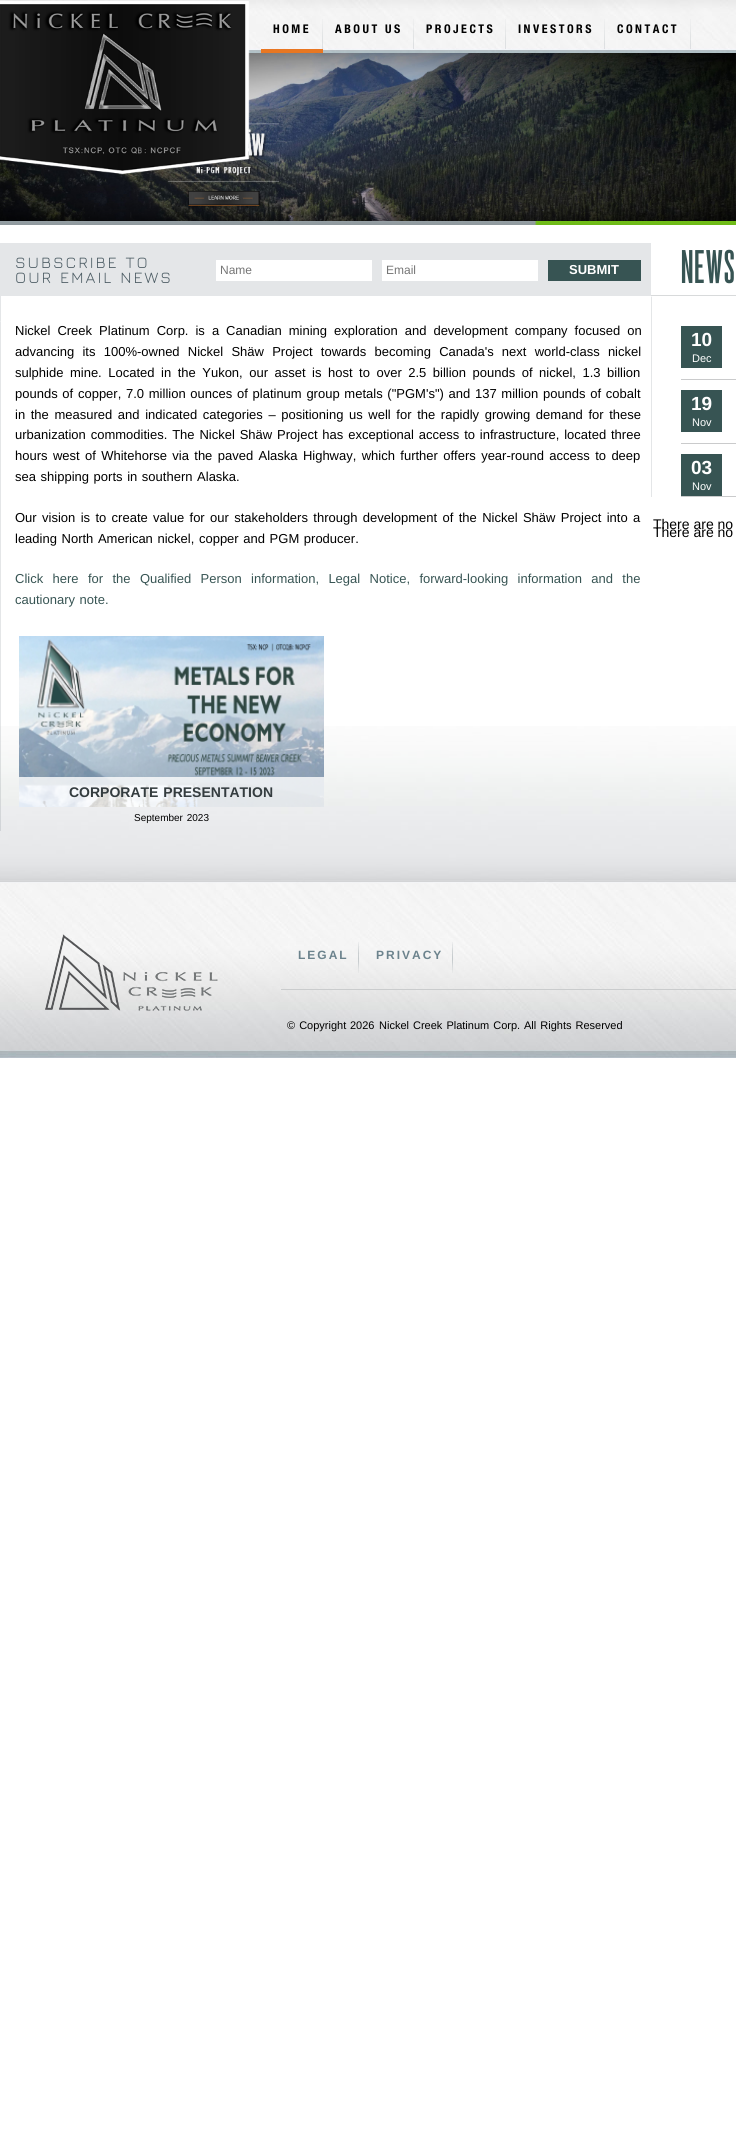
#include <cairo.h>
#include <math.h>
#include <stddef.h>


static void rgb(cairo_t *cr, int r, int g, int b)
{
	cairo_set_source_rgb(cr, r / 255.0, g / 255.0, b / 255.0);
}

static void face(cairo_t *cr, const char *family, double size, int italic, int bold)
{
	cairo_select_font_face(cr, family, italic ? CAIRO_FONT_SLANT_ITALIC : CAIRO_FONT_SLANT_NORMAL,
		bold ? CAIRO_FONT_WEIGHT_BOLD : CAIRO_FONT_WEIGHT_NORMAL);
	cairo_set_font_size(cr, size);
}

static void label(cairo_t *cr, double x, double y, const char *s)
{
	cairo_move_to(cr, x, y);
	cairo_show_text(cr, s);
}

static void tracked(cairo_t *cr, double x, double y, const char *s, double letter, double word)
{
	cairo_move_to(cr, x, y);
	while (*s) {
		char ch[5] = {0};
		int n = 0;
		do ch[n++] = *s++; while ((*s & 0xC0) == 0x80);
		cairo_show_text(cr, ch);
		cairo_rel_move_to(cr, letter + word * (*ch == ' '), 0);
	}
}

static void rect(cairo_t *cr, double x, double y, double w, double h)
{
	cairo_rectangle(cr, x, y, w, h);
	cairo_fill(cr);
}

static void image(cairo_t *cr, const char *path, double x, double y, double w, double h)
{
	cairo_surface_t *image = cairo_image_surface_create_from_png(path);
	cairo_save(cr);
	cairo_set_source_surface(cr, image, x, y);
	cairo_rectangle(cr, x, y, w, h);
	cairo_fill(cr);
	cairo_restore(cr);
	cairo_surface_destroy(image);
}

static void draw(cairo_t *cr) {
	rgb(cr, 255, 255, 255);
	cairo_paint(cr);
	image(cr, "image0.png", 0, 0, 736, 53);
	image(cr, "image7.png", 0, 53, 736, 168);
	image(cr, "image1.png", 0, 1, 250, 174);
	image(cr, "image2.png", 322, 19, 1, 30);
	rgb(cr, 232, 119, 34);
	rect(cr, 261, 49, 62, 4);
	face(cr, "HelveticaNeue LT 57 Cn", 12, 0, 1);
	rgb(cr, 0, 0, 0);
	tracked(cr, 273, 33, "HOME", 2.5, 0);
	image(cr, "image3.png", 413, 19, 1, 30);
	tracked(cr, 335, 33, "ABOUT US", 2.5, 0);
	image(cr, "image4.png", 505, 19, 1, 30);
	tracked(cr, 426, 33, "PROJECTS", 2.5, 0);
	image(cr, "image5.png", 604, 19, 1, 30);
	tracked(cr, 518, 33, "INVESTORS", 2.5, 0);
	image(cr, "image6.png", 690, 19, 1, 30);
	tracked(cr, 617, 33, "CONTACT", 2.5, 0);
	image(cr, "image8.png", 0, 203, 736, 52);
	image(cr, "image9.png", 0, 296, 1, 25);
	rgb(cr, 228, 230, 232);
	rect(cr, 0, 243, 651, 53);
	face(cr, "Jura", 16, 0, 0);
	rgb(cr, 75, 91, 99);
	tracked(cr, 15, 268, "SUBSCRIBE TO", 2, 1);
	tracked(cr, 15, 283, "OUR EMAIL NEWS", 2, 1);
	rgb(cr, 255, 255, 255);
	rect(cr, 216, 260, 156, 21);
	face(cr, "Liberation Sans", 12, 0, 0);
	rgb(cr, 117, 117, 117);
	label(cr, 220, 274, "Name");
	rgb(cr, 255, 255, 255);
	rect(cr, 382, 260, 156, 21);
	rgb(cr, 117, 117, 117);
	label(cr, 386, 274, "Email");
	rgb(cr, 55, 84, 83);
	rect(cr, 548, 260, 93, 21);
	face(cr, "Liberation Sans", 13, 0, 1);
	rgb(cr, 255, 255, 255);
	label(cr, 569, 274, "SUBMIT");
	rgb(cr, 216, 218, 219);
	rect(cr, 651, 295, 85, 1);
	face(cr, "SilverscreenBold", 47, 0, 1);
	rgb(cr, 55, 84, 83);
	tracked(cr, 681, 283, "NEWS", 1, 0);
	image(cr, "image10.png", 651, 296, 1, 201);
	rgb(cr, 202, 203, 204);
	rect(cr, 681, 379, 55, 1);
	rgb(cr, 55, 84, 83);
	rect(cr, 681, 326, 41, 42);
	face(cr, "Liberation Sans", 19, 0, 1);
	rgb(cr, 255, 255, 255);
	label(cr, 691, 346, "10");
	face(cr, "Liberation Sans", 11, 0, 0);
	label(cr, 692, 362, "Dec");
	rgb(cr, 202, 203, 204);
	rect(cr, 681, 443, 55, 1);
	rgb(cr, 55, 84, 83);
	rect(cr, 681, 390, 41, 42);
	face(cr, "Liberation Sans", 19, 0, 1);
	rgb(cr, 255, 255, 255);
	label(cr, 691, 410, "19");
	face(cr, "Liberation Sans", 11, 0, 0);
	label(cr, 692, 426, "Nov");
	rgb(cr, 202, 203, 204);
	rect(cr, 681, 496, 55, 1);
	rgb(cr, 55, 84, 83);
	rect(cr, 681, 454, 41, 42);
	face(cr, "Liberation Sans", 19, 0, 1);
	rgb(cr, 255, 255, 255);
	label(cr, 691, 474, "03");
	face(cr, "Liberation Sans", 11, 0, 0);
	label(cr, 692, 490, "Nov");
	face(cr, "Liberation Sans", 14, 0, 0);
	rgb(cr, 0, 0, 0);
	label(cr, 653, 529, "There are no");
	label(cr, 653, 537, "There are no");
	image(cr, "image13.png", 0, 726, 736, 157);
	image(cr, "image11.png", 0, 321, 1, 510);
	face(cr, "Liberation Sans", 13, 0, 0);
	tracked(cr, 15, 335, "Nickel Creek Platinum Corp. is a Canadian mining exploration and development company focused on", 0, 3.4);
	tracked(cr, 15, 356, "advancing its 100%-owned Nickel Shäw Project towards becoming Canada's next world-class nickel", 0, 4.6);
	tracked(cr, 15, 377, "sulphide mine. Located in the Yukon, our asset is host to over 2.5 billion pounds of nickel, 1.3 billion", 0, 2.9);
	tracked(cr, 15, 398, "pounds of copper, 7.0 million ounces of platinum group metals (\"PGM's\") and 137 million pounds of cobalt", 0, 1.1);
	tracked(cr, 15, 419, "in the measured and indicated categories – positioning us well for the rapidly growing demand for these", 0, 2);
	tracked(cr, 15, 439, "urbanization commodities. The Nickel Shäw Project has exceptional access to infrastructure, located three", 0, 1.25);
	tracked(cr, 15, 460, "hours west of Whitehorse via the paved Alaska Highway, which further offers year-round access to deep", 0, 1.75);
	tracked(cr, 15, 481, "sea shipping ports in southern Alaska.", 0, 1);
	tracked(cr, 15, 522, "Our vision is to create value for our stakeholders through development of the Nickel Shäw Project into a", 0, 1.75);
	tracked(cr, 15, 543, "leading North American nickel, copper and PGM producer.", 0, 1);
	rgb(cr, 55, 84, 83);
	tracked(cr, 15, 583, "Click here for the Qualified Person information, Legal Notice, forward-looking information and the", 0, 5.75);
	tracked(cr, 15, 604, "cautionary note.", 0, 1);
	image(cr, "image12.png", 19, 636, 305, 171);
	cairo_set_source_rgba(cr, 1, 1, 1, 0.8);
	rect(cr, 19, 777, 305, 30);
	face(cr, "Liberation Sans", 14, 0, 1);
	rgb(cr, 52, 60, 63);
	tracked(cr, 69, 797, "CORPORATE PRESENTATION", 0, 1);
	face(cr, "Liberation Sans", 10, 0, 0);
	rgb(cr, 0, 0, 0);
	tracked(cr, 134, 821, "September 2023", 0, 1);
	image(cr, "image14.png", 0, 883, 736, 175);
	image(cr, "image15.png", 45, 934, 173, 77);
	rgb(cr, 202, 204, 205);
	rect(cr, 281, 989, 455, 1);
	image(cr, "image16.png", 358, 942, 1, 31);
	face(cr, "Liberation Sans", 12, 0, 1);
	rgb(cr, 108, 131, 141);
	tracked(cr, 298, 959, "LEGAL", 2, 0);
	image(cr, "image17.png", 452, 942, 1, 31);
	tracked(cr, 376, 959, "PRIVACY", 2, 0);
	face(cr, "Liberation Sans", 11, 0, 0);
	rgb(cr, 0, 0, 0);
	tracked(cr, 287, 1029, "© Copyright", 0, 1);
	label(cr, 350, 1029, "2026");
	tracked(cr, 379, 1029, "Nickel Creek Platinum Corp.", 0, 1);
	tracked(cr, 524, 1029, "All Rights Reserved", 0, 1);
}

int main(void) {
	cairo_surface_t *surface = cairo_image_surface_create(CAIRO_FORMAT_RGB24, 736, 2141);
	cairo_t *cr = cairo_create(surface);
	cairo_font_options_t *options = cairo_font_options_create();
	cairo_font_options_set_hint_metrics(options, CAIRO_HINT_METRICS_OFF);
	cairo_font_options_set_hint_style(options, CAIRO_HINT_STYLE_NONE);
	cairo_set_font_options(cr, options);
	cairo_set_miter_limit(cr, 4);
	draw(cr);
	cairo_surface_write_to_png(surface, "render.png");
	cairo_font_options_destroy(options);
	cairo_destroy(cr);
	cairo_surface_destroy(surface);
	return 0;
}
